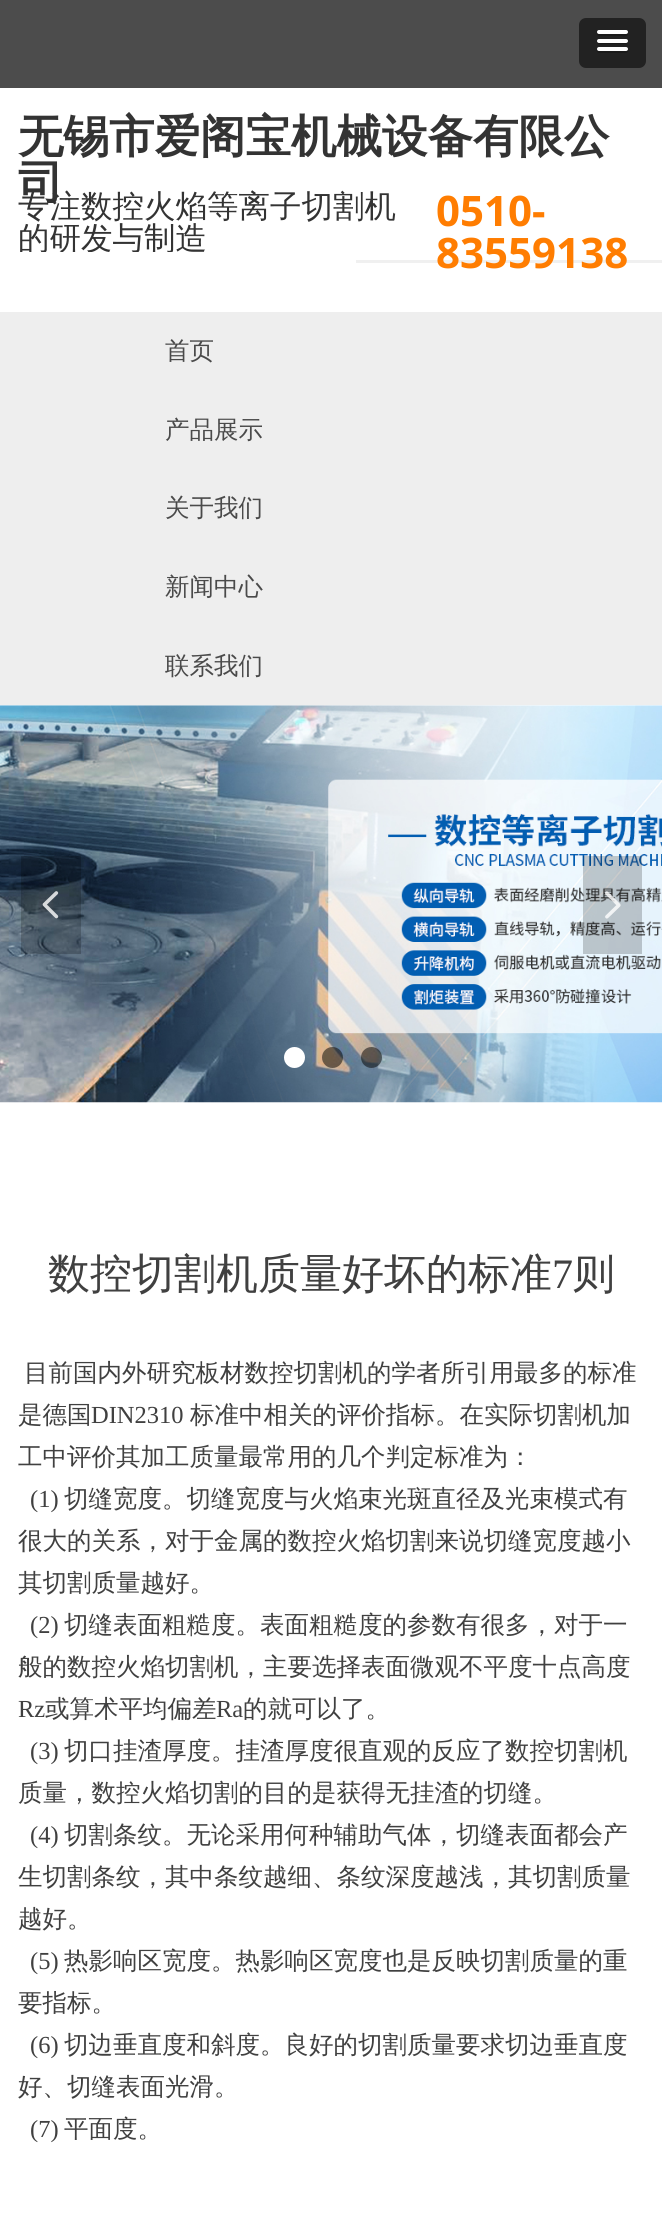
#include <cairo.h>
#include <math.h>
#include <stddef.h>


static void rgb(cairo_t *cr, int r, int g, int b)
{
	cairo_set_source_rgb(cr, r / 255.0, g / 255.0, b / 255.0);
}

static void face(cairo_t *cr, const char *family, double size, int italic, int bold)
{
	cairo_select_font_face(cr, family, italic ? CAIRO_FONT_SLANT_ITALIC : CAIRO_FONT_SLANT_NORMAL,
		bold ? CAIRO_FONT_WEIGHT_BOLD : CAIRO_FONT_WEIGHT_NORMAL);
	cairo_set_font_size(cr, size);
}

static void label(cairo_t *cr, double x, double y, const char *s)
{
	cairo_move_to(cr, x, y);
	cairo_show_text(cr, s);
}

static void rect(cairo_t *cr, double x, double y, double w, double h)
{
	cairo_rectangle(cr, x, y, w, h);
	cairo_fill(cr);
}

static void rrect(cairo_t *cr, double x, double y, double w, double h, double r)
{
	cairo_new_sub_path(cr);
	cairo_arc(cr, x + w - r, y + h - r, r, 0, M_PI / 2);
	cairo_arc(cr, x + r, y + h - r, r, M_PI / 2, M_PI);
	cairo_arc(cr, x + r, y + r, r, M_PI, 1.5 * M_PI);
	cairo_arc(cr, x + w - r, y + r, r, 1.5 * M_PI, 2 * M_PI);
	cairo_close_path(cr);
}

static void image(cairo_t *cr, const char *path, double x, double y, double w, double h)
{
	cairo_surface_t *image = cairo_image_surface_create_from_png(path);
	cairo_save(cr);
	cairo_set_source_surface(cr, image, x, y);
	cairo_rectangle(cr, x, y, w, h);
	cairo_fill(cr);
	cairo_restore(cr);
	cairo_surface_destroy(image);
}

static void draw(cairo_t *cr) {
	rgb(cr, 255, 255, 255);
	cairo_paint(cr);
	rgb(cr, 76, 76, 76);
	rect(cr, 0, 0, 662, 88);
	rgb(cr, 34, 34, 34);
	rrect(cr, 579, 18, 67, 50, 7);
	cairo_fill(cr);
	rgb(cr, 26, 26, 26);
	cairo_new_path(cr);
	cairo_move_to(cr, 597.5, 33);
	cairo_line_to(cr, 597, 34.5);
	cairo_curve_to(cr, 597.5, 37, 602.5, 36, 603.5, 36);
	cairo_line_to(cr, 621.5, 36);
	cairo_curve_to(cr, 622.5, 36, 627.5, 37, 628, 34.5);
	cairo_line_to(cr, 627.5, 33);
	cairo_curve_to(cr, 626.5, 33.5, 598.5, 33.5, 597.5, 33);
	cairo_close_path(cr);
	cairo_fill(cr);
	rgb(cr, 255, 255, 255);
	rrect(cr, 597, 30, 31, 4, 2);
	cairo_fill(cr);
	rgb(cr, 26, 26, 26);
	cairo_new_path(cr);
	cairo_move_to(cr, 597, 41.5);
	cairo_curve_to(cr, 596, 45, 602.5, 44, 603.5, 44);
	cairo_line_to(cr, 621.5, 44);
	cairo_curve_to(cr, 622.5, 44, 629, 45, 628, 41.5);
	cairo_line_to(cr, 626.5, 42);
	cairo_line_to(cr, 598.5, 42);
	cairo_close_path(cr);
	cairo_fill(cr);
	rgb(cr, 255, 255, 255);
	rrect(cr, 597, 39, 31, 4, 2);
	cairo_fill(cr);
	rgb(cr, 26, 26, 26);
	cairo_new_path(cr);
	cairo_move_to(cr, 597, 50);
	cairo_curve_to(cr, 595.5, 54, 602.5, 53, 603.5, 53);
	cairo_line_to(cr, 621.5, 53);
	cairo_curve_to(cr, 622.5, 53, 629.5, 54, 628, 50);
	cairo_line_to(cr, 626.5, 50.5);
	cairo_line_to(cr, 598.5, 50.5);
	cairo_close_path(cr);
	cairo_fill(cr);
	rgb(cr, 255, 255, 255);
	rrect(cr, 597, 47, 31, 4, 2);
	cairo_fill(cr);
	face(cr, "WenQuanYi Zen Hei", 45.5, 0, 1);
	rgb(cr, 51, 51, 51);
	label(cr, 18, 152, "无锡市爱阁宝机械设备有限公");
	cairo_save(cr);
	cairo_rectangle(cr, 18, 112, 628, 91);
	cairo_clip(cr);
	label(cr, 18, 198, "司");
	cairo_restore(cr);
	face(cr, "WenQuanYi Zen Hei Medium", 31.5, 0, 0);
	label(cr, 18, 217, "专注数控火焰等离子切割机");
	cairo_save(cr);
	cairo_rectangle(cr, 18, 189, 400, 63);
	cairo_clip(cr);
	label(cr, 18, 249, "的研发与制造");
	cairo_restore(cr);
	face(cr, "Noto Sans", 42, 0, 1);
	rgb(cr, 255, 125, 1);
	label(cr, 436, 226, "0510-");
	rgb(cr, 240, 240, 240);
	rect(cr, 356, 260, 306, 3);
	rgb(cr, 255, 125, 1);
	label(cr, 436, 268, "83559138");
	rgb(cr, 238, 238, 238);
	rect(cr, 0, 312, 662, 393);
	face(cr, "WenQuanYi Zen Hei Medium", 24.5, 0, 0);
	rgb(cr, 74, 74, 74);
	label(cr, 165, 359, "首页");
	label(cr, 165, 438, "产品展示");
	label(cr, 165, 516, "关于我们");
	label(cr, 165, 595, "新闻中心");
	cairo_save(cr);
	cairo_rectangle(cr, 165, 627, 98, 78);
	cairo_clip(cr);
	label(cr, 165, 674, "联系我们");
	cairo_restore(cr);
	image(cr, "image0.png", 0, 705, 662, 398);
	cairo_set_source_rgba(cr, 0, 0, 0, 0.2);
	rect(cr, 21, 856, 60, 98);
	image(cr, "image1.png", 42, 891, 17, 28);
	rect(cr, 583, 856, 59, 98);
	image(cr, "image2.png", 605, 891, 16, 28);
	rgb(cr, 255, 255, 255);
	cairo_arc(cr, 294.5, 1057.5, 10.5, 0, 2 * M_PI);
	cairo_fill(cr);
	cairo_set_source_rgba(cr, 0, 0, 0, 0.5);
	cairo_arc(cr, 332.5, 1057.5, 10.5, 0, 2 * M_PI);
	cairo_fill(cr);
	cairo_arc(cr, 371.5, 1057.5, 10.5, 0, 2 * M_PI);
	cairo_fill(cr);
	face(cr, "WenQuanYi Zen Hei Medium", 42, 0, 0);
	rgb(cr, 64, 64, 64);
	label(cr, 48, 1288, "数控切割机质量好坏的标准");
	face(cr, "Liberation Serif", 42, 0, 0);
	label(cr, 552, 1288, "7");
	face(cr, "WenQuanYi Zen Hei Medium", 42, 0, 0);
	label(cr, 573, 1288, "则");
	face(cr, "WenQuanYi Zen Hei Medium", 24.5, 0, 0);
	label(cr, 24, 1381, "目前国内外研究板材数控切割机的学者所引用最多的标准");
	label(cr, 18, 1423, "是德国");
	face(cr, "Liberation Serif", 24.5, 0, 0);
	label(cr, 91, 1423, "DIN2310");
	face(cr, "WenQuanYi Zen Hei Medium", 24.5, 0, 0);
	label(cr, 190, 1423, "标准中相关的评价指标。在实际切割机加");
	label(cr, 18, 1465, "工中评价其加工质量最常用的几个判定标准为：");
	face(cr, "Liberation Serif", 24.5, 0, 0);
	label(cr, 30, 1507, "(1)");
	face(cr, "WenQuanYi Zen Hei Medium", 24.5, 0, 0);
	label(cr, 64, 1507, "切缝宽度。切缝宽度与火焰束光斑直径及光束模式有");
	label(cr, 18, 1549, "很大的关系，对于金属的数控火焰切割来说切缝宽度越小");
	label(cr, 18, 1591, "其切割质量越好。");
	face(cr, "Liberation Serif", 24.5, 0, 0);
	label(cr, 30, 1633, "(2)");
	face(cr, "WenQuanYi Zen Hei Medium", 24.5, 0, 0);
	label(cr, 64, 1633, "切缝表面粗糙度。表面粗糙度的参数有很多，对于一");
	label(cr, 18, 1675, "般的数控火焰切割机，主要选择表面微观不平度十点高度");
	face(cr, "Liberation Serif", 24.5, 0, 0);
	label(cr, 18, 1717, "Rz");
	face(cr, "WenQuanYi Zen Hei Medium", 24.5, 0, 0);
	label(cr, 45, 1717, "或算术平均偏差");
	face(cr, "Liberation Serif", 24.5, 0, 0);
	label(cr, 216, 1717, "Ra");
	face(cr, "WenQuanYi Zen Hei Medium", 24.5, 0, 0);
	label(cr, 243, 1717, "的就可以了。");
	face(cr, "Liberation Serif", 24.5, 0, 0);
	label(cr, 30, 1759, "(3)");
	face(cr, "WenQuanYi Zen Hei Medium", 24.5, 0, 0);
	label(cr, 64, 1759, "切口挂渣厚度。挂渣厚度很直观的反应了数控切割机");
	label(cr, 18, 1801, "质量，数控火焰切割的目的是获得无挂渣的切缝。");
	face(cr, "Liberation Serif", 24.5, 0, 0);
	label(cr, 30, 1843, "(4)");
	face(cr, "WenQuanYi Zen Hei Medium", 24.5, 0, 0);
	label(cr, 64, 1843, "切割条纹。无论采用何种辅助气体，切缝表面都会产");
	label(cr, 18, 1885, "生切割条纹，其中条纹越细、条纹深度越浅，其切割质量");
	label(cr, 18, 1927, "越好。");
	face(cr, "Liberation Serif", 24.5, 0, 0);
	label(cr, 30, 1969, "(5)");
	face(cr, "WenQuanYi Zen Hei Medium", 24.5, 0, 0);
	label(cr, 64, 1969, "热影响区宽度。热影响区宽度也是反映切割质量的重");
	label(cr, 18, 2011, "要指标。");
	face(cr, "Liberation Serif", 24.5, 0, 0);
	label(cr, 30, 2053, "(6)");
	face(cr, "WenQuanYi Zen Hei Medium", 24.5, 0, 0);
	label(cr, 64, 2053, "切边垂直度和斜度。良好的切割质量要求切边垂直度");
	label(cr, 18, 2095, "好、切缝表面光滑。");
	face(cr, "Liberation Serif", 24.5, 0, 0);
	label(cr, 30, 2137, "(7)");
	face(cr, "WenQuanYi Zen Hei Medium", 24.5, 0, 0);
	label(cr, 64, 2137, "平面度。");
}

int main(void) {
	cairo_surface_t *surface = cairo_image_surface_create(CAIRO_FORMAT_RGB24, 662, 2237);
	cairo_t *cr = cairo_create(surface);
	cairo_font_options_t *options = cairo_font_options_create();
	cairo_font_options_set_hint_metrics(options, CAIRO_HINT_METRICS_OFF);
	cairo_font_options_set_hint_style(options, CAIRO_HINT_STYLE_NONE);
	cairo_set_font_options(cr, options);
	cairo_set_miter_limit(cr, 4);
	draw(cr);
	cairo_surface_write_to_png(surface, "render.png");
	cairo_font_options_destroy(options);
	cairo_destroy(cr);
	cairo_surface_destroy(surface);
	return 0;
}
